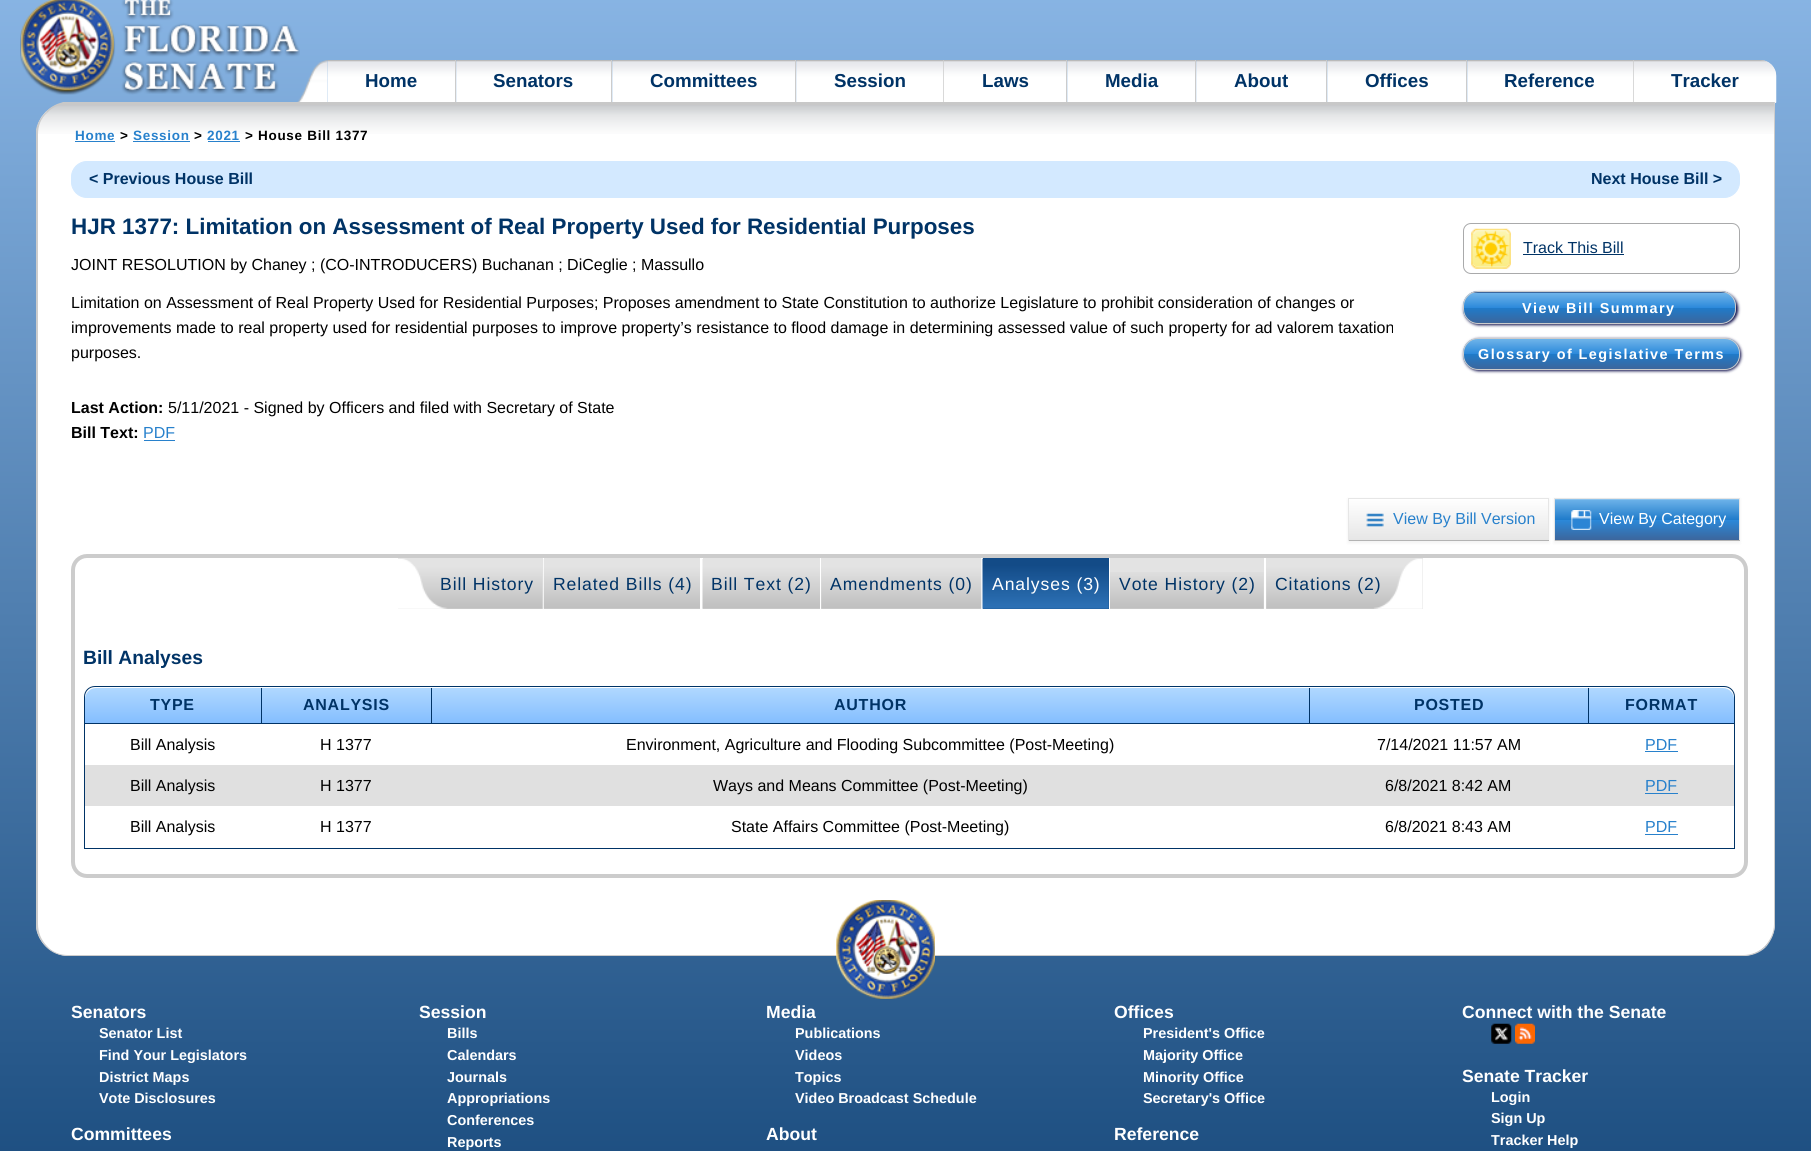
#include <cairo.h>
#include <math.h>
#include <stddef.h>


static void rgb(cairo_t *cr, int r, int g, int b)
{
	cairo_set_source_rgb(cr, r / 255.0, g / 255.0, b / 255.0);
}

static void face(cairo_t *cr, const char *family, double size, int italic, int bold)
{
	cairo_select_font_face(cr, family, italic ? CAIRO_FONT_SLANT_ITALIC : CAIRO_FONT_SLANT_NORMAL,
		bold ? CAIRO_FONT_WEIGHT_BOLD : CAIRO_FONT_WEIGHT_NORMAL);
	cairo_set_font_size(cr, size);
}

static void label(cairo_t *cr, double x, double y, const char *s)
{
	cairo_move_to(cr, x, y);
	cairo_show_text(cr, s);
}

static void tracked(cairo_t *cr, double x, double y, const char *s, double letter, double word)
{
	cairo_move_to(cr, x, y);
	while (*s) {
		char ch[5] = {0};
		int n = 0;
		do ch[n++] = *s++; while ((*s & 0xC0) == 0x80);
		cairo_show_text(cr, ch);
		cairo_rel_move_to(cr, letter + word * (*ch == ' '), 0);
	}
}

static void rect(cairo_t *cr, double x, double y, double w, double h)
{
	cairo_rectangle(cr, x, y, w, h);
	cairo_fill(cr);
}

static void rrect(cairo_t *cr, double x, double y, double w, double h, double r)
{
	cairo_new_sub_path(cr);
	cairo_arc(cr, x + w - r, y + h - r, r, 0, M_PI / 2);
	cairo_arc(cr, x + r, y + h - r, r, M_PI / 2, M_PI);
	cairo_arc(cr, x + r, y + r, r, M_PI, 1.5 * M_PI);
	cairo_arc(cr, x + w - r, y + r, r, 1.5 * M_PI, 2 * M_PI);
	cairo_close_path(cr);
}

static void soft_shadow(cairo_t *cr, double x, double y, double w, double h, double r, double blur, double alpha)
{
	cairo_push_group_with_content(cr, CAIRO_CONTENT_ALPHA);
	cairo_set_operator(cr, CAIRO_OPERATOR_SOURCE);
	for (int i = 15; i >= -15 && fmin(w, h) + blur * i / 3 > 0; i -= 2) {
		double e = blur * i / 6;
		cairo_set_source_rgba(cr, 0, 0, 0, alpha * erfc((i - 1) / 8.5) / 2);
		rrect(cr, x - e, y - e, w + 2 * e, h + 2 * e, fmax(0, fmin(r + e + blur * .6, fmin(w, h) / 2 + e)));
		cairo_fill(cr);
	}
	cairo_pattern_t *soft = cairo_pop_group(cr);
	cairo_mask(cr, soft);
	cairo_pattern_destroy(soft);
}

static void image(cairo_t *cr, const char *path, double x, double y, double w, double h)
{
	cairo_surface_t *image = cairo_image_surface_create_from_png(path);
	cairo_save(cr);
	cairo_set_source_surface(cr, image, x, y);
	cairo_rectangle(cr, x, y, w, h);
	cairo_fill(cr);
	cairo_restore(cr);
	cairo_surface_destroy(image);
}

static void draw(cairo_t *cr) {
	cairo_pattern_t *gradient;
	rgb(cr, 255, 255, 255);
	cairo_paint(cr);
	gradient = cairo_pattern_create_linear(906, -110, 906, 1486);
	cairo_pattern_add_color_stop_rgba(gradient, 0.01, 0.565, 0.737, 0.922, 1);
	cairo_pattern_add_color_stop_rgba(gradient, 1, 0, 0.2, 0.4, 1);
	cairo_set_source(cr, gradient);
	cairo_pattern_destroy(gradient);
	rect(cr, 0, 0, 1811, 1151);
	image(cr, "image0.png", 20, 0, 280, 95);
	image(cr, "image1.png", 297, 60, 31, 42);
	image(cr, "image2.png", 327, 60, 130, 42);
	rgb(cr, 204, 204, 204);
	rect(cr, 455, 60, 1, 43);
	face(cr, "Liberation Sans", 18.75, 0, 1);
	rgb(cr, 0, 51, 102);
	label(cr, 365, 87, "Home");
	image(cr, "image3.png", 456, 60, 157, 42);
	rgb(cr, 204, 204, 204);
	rect(cr, 611, 60, 1, 43);
	rgb(cr, 0, 51, 102);
	label(cr, 493, 87, "Senators");
	image(cr, "image4.png", 612, 60, 185, 42);
	rgb(cr, 204, 204, 204);
	rect(cr, 795, 60, 1, 43);
	rgb(cr, 0, 51, 102);
	label(cr, 650, 87, "Committees");
	image(cr, "image5.png", 796, 60, 147, 42);
	rgb(cr, 204, 204, 204);
	rect(cr, 943, 60, 1, 43);
	rgb(cr, 0, 51, 102);
	label(cr, 834, 87, "Session");
	image(cr, "image6.png", 943, 60, 125, 42);
	rgb(cr, 204, 204, 204);
	rect(cr, 1066, 60, 1, 43);
	rgb(cr, 0, 51, 102);
	label(cr, 982, 87, "Laws");
	image(cr, "image7.png", 1067, 60, 130, 42);
	rgb(cr, 204, 204, 204);
	rect(cr, 1195, 60, 1, 43);
	rgb(cr, 0, 51, 102);
	label(cr, 1105, 87, "Media");
	image(cr, "image8.png", 1196, 60, 132, 42);
	rgb(cr, 204, 204, 204);
	rect(cr, 1326, 60, 1, 43);
	rgb(cr, 0, 51, 102);
	label(cr, 1234, 87, "About");
	image(cr, "image9.png", 1327, 60, 141, 42);
	rgb(cr, 204, 204, 204);
	rect(cr, 1466, 60, 1, 43);
	rgb(cr, 0, 51, 102);
	label(cr, 1365, 87, "Offices");
	image(cr, "image10.png", 1467, 60, 166, 42);
	rgb(cr, 204, 204, 204);
	rect(cr, 1633, 60, 1, 43);
	rgb(cr, 0, 51, 102);
	label(cr, 1504, 87, "Reference");
	rgb(cr, 235, 235, 240);
	cairo_new_path(cr);
	cairo_move_to(cr, 1634, 60);
	cairo_line_to(cr, 1760, 60);
	cairo_curve_to(cr, 1769, 60, 1776, 67, 1776, 76);
	cairo_line_to(cr, 1776, 103);
	cairo_line_to(cr, 1634, 103);
	cairo_close_path(cr);
	cairo_fill(cr);
	image(cr, "image11.png", 1633, 60, 144, 43);
	rgb(cr, 0, 51, 102);
	label(cr, 1671, 87, "Tracker");
	rgb(cr, 255, 255, 255);
	cairo_new_path(cr);
	cairo_move_to(cr, 69, 103);
	cairo_line_to(cr, 1775, 103);
	cairo_line_to(cr, 1775, 923);
	cairo_curve_to(cr, 1775, 941, 1760, 956, 1742, 956);
	cairo_line_to(cr, 69, 956);
	cairo_curve_to(cr, 51, 956, 36, 941, 36, 923);
	cairo_line_to(cr, 36, 136);
	cairo_curve_to(cr, 36, 118, 51, 103, 69, 103);
	cairo_close_path(cr);
	cairo_fill(cr);
	image(cr, "image12.png", 36, 103, 1739, 31);
	rgb(cr, 200, 200, 200);
	cairo_new_path(cr);
	cairo_move_to(cr, 68, 104);
	cairo_curve_to(cr, 60, 104, 52, 107, 47, 113);
	cairo_line_to(cr, 46, 112);
	cairo_curve_to(cr, 50, 107, 56, 104, 63, 102);
	cairo_line_to(cr, 1775, 102);
	cairo_line_to(cr, 1774, 104);
	cairo_close_path(cr);
	cairo_fill(cr);
	rgb(cr, 204, 204, 204);
	cairo_new_path(cr);
	cairo_move_to(cr, 1775, 102);
	cairo_line_to(cr, 1774, 104);
	cairo_line_to(cr, 1774, 924);
	cairo_curve_to(cr, 1774, 933, 1770, 940, 1765, 946);
	cairo_line_to(cr, 1766, 947);
	cairo_curve_to(cr, 1771, 941, 1775, 933, 1775, 924);
	cairo_close_path(cr);
	cairo_fill(cr);
	cairo_new_path(cr);
	cairo_move_to(cr, 1766, 947);
	cairo_curve_to(cr, 1760, 953, 1752, 956, 1743, 956);
	cairo_line_to(cr, 68, 956);
	cairo_curve_to(cr, 60, 956, 52, 953, 46, 947);
	cairo_line_to(cr, 47, 946);
	cairo_curve_to(cr, 52, 952, 60, 955, 68, 955);
	cairo_line_to(cr, 1743, 955);
	cairo_curve_to(cr, 1751, 955, 1759, 952, 1765, 946);
	cairo_close_path(cr);
	cairo_fill(cr);
	cairo_new_path(cr);
	cairo_move_to(cr, 36, 130);
	cairo_curve_to(cr, 37, 123, 41, 117, 46, 112);
	cairo_line_to(cr, 47, 113);
	cairo_curve_to(cr, 41, 118, 38, 126, 38, 134);
	cairo_line_to(cr, 38, 924);
	cairo_curve_to(cr, 38, 932, 41, 940, 47, 946);
	cairo_line_to(cr, 46, 947);
	cairo_curve_to(cr, 41, 942, 37, 935, 36, 928);
	cairo_close_path(cr);
	cairo_fill(cr);
	face(cr, "Liberation Sans", 13.5, 0, 1);
	rgb(cr, 40, 129, 204);
	tracked(cr, 75, 140, "Home", 0.7, 0);
	rect(cr, 75, 141, 40, 1);
	rgb(cr, 0, 0, 0);
	tracked(cr, 120, 140, ">", 0.7, 0);
	rgb(cr, 40, 129, 204);
	tracked(cr, 133, 140, "Session", 0.7, 0);
	rect(cr, 133, 141, 57, 1);
	rgb(cr, 0, 0, 0);
	tracked(cr, 194, 140, ">", 0.7, 0);
	rgb(cr, 40, 129, 204);
	tracked(cr, 207, 140, "2021", 0.7, 0);
	rect(cr, 208, 141, 32, 1);
	rgb(cr, 0, 0, 0);
	tracked(cr, 245, 140, "> House Bill 1377", 0.7, 0);
	rgb(cr, 211, 233, 255);
	rrect(cr, 71.5, 161.5, 1668, 36, 15.5);
	cairo_fill_preserve(cr);
	cairo_set_line_width(cr, 1);
	cairo_stroke(cr);
	face(cr, "Liberation Sans", 16, 0, 1);
	rgb(cr, 0, 51, 102);
	label(cr, 89, 184, "< Previous House Bill");
	label(cr, 1591, 184, "Next House Bill >");
	face(cr, "Liberation Sans", 22.4, 0, 1);
	label(cr, 71, 234, "HJR 1377: Limitation on Assessment of Real Property Used for Residential Purposes");
	face(cr, "Liberation Sans", 16, 0, 0);
	rgb(cr, 0, 0, 0);
	label(cr, 71, 270, "JOINT RESOLUTION by Chaney ; (CO-INTRODUCERS) Buchanan ; DiCeglie ; Massullo");
	rrect(cr, 1463.5, 223.5, 276, 50, 7.5);
	rgb(cr, 169, 170, 171);
	cairo_stroke(cr);
	image(cr, "image13.png", 1471, 228, 40, 41);
	rgb(cr, 0, 51, 102);
	label(cr, 1523, 253, "Track This Bill");
	rect(cr, 1523, 254, 101, 1);
	rgb(cr, 4, 4, 67);
	soft_shadow(cr, 1464, 293, 274, 32, 15, 1.5, 1);
	cairo_save(cr);
	rrect(cr, 1463, 291, 273, 33, 15);
	cairo_clip(cr);
	gradient = cairo_pattern_create_linear(1464, 293, 1464, 323);
	cairo_pattern_add_color_stop_rgba(gradient, 0, 0.435, 0.706, 0.918, 1);
	cairo_pattern_add_color_stop_rgba(gradient, 0.5, 0.169, 0.537, 0.855, 1);
	cairo_pattern_add_color_stop_rgba(gradient, 0.5, 0.122, 0.482, 0.792, 1);
	cairo_pattern_add_color_stop_rgba(gradient, 1, 0.235, 0.4, 0.612, 1);
	cairo_set_source(cr, gradient);
	cairo_pattern_destroy(gradient);
	rect(cr, 1463, 293, 273, 30);
	gradient = cairo_pattern_create_linear(1464, 263, 1464, 293);
	cairo_pattern_add_color_stop_rgba(gradient, 0, 0.435, 0.706, 0.918, 1);
	cairo_pattern_add_color_stop_rgba(gradient, 0.5, 0.169, 0.537, 0.855, 1);
	cairo_pattern_add_color_stop_rgba(gradient, 0.5, 0.122, 0.482, 0.792, 1);
	cairo_pattern_add_color_stop_rgba(gradient, 1, 0.235, 0.4, 0.612, 1);
	cairo_set_source(cr, gradient);
	cairo_pattern_destroy(gradient);
	rect(cr, 1463, 291, 273, 2);
	cairo_restore(cr);
	rrect(cr, 1463.5, 291.5, 272, 32, 14.5);
	rgb(cr, 204, 204, 204);
	cairo_stroke(cr);
	face(cr, "Liberation Sans", 14.4, 0, 1);
	rgb(cr, 255, 255, 255);
	tracked(cr, 1522, 313, "View Bill Summary", 1.45, 0);
	rgb(cr, 4, 4, 67);
	soft_shadow(cr, 1464, 339, 277, 32, 15, 1.5, 1);
	cairo_save(cr);
	rrect(cr, 1463, 338, 277, 32, 15);
	cairo_clip(cr);
	gradient = cairo_pattern_create_linear(1464, 339, 1464, 369);
	cairo_pattern_add_color_stop_rgba(gradient, 0, 0.435, 0.706, 0.918, 1);
	cairo_pattern_add_color_stop_rgba(gradient, 0.5, 0.169, 0.537, 0.855, 1);
	cairo_pattern_add_color_stop_rgba(gradient, 0.5, 0.122, 0.482, 0.792, 1);
	cairo_pattern_add_color_stop_rgba(gradient, 1, 0.235, 0.4, 0.612, 1);
	cairo_set_source(cr, gradient);
	cairo_pattern_destroy(gradient);
	rect(cr, 1463, 339, 277, 30);
	cairo_restore(cr);
	rrect(cr, 1463.5, 338.5, 276, 31, 14.5);
	rgb(cr, 204, 204, 204);
	cairo_stroke(cr);
	rgb(cr, 255, 255, 255);
	tracked(cr, 1478, 359, "Glossary of Legislative Terms", 1.45, 0);
	face(cr, "Liberation Sans", 16, 0, 0);
	rgb(cr, 0, 0, 0);
	label(cr, 71, 308, "Limitation on Assessment of Real Property Used for Residential Purposes; Proposes amendment to State Constitution to authorize Legislature to prohibit consideration of changes or");
	label(cr, 71, 333, "improvements made to real property used for residential purposes to improve property’s resistance to flood damage in determining assessed value of such property for ad valorem taxation");
	label(cr, 71, 358, "purposes.");
	face(cr, "Liberation Sans", 16, 0, 1);
	label(cr, 71, 413, "Last Action:");
	face(cr, "Liberation Sans", 16, 0, 0);
	label(cr, 168, 413, "5/11/2021 - Signed by Officers and filed with Secretary of State");
	face(cr, "Liberation Sans", 16, 0, 1);
	label(cr, 71, 438, "Bill Text:");
	face(cr, "Liberation Sans", 16, 0, 0);
	rgb(cr, 40, 129, 204);
	label(cr, 143, 438, "PDF");
	rect(cr, 144, 440, 31, 1);
	rgb(cr, 0, 0, 0);
	soft_shadow(cr, 1348, 499, 201, 44, 0, 1.5, 0.05);
	gradient = cairo_pattern_create_linear(1448, 499, 1448, 540);
	cairo_pattern_add_color_stop_rgba(gradient, 0, 1, 1, 1, 1);
	cairo_pattern_add_color_stop_rgba(gradient, 1, 0.902, 0.902, 0.902, 1);
	cairo_set_source(cr, gradient);
	cairo_pattern_destroy(gradient);
	rect(cr, 1349, 499, 199, 41);
	rgb(cr, 230, 230, 230);
	rect(cr, 1348, 498, 201, 1);
	rect(cr, 1548, 498, 1, 43);
	rgb(cr, 179, 179, 179);
	rect(cr, 1348, 540, 201, 1);
	rgb(cr, 230, 230, 230);
	rect(cr, 1348, 498, 1, 43);
	image(cr, "image14.png", 1366, 513, 18, 14);
	rgb(cr, 40, 129, 204);
	label(cr, 1393, 524, "View By Bill Version");
	rgb(cr, 0, 0, 0);
	soft_shadow(cr, 1554, 499, 186, 44, 0, 1.5, 0.05);
	gradient = cairo_pattern_create_linear(1647, 499, 1647, 540);
	cairo_pattern_add_color_stop_rgba(gradient, 0, 0.435, 0.706, 0.918, 1);
	cairo_pattern_add_color_stop_rgba(gradient, 0.51, 0.122, 0.482, 0.792, 1);
	cairo_pattern_add_color_stop_rgba(gradient, 0.51, 0.169, 0.537, 0.855, 1);
	cairo_pattern_add_color_stop_rgba(gradient, 1, 0.235, 0.4, 0.612, 1);
	cairo_set_source(cr, gradient);
	cairo_pattern_destroy(gradient);
	rect(cr, 1555, 500, 184, 40);
	rgb(cr, 138, 194, 237);
	rect(cr, 1555, 499, 184, 1);
	rgb(cr, 230, 230, 230);
	rect(cr, 1554, 498, 186, 1);
	rect(cr, 1739, 498, 1, 43);
	rgb(cr, 179, 179, 179);
	rect(cr, 1554, 540, 186, 1);
	rgb(cr, 230, 230, 230);
	rect(cr, 1554, 498, 1, 43);
	image(cr, "image15.png", 1571, 510, 21, 20);
	rgb(cr, 255, 255, 255);
	label(cr, 1599, 524, "View By Category");
	rrect(cr, 73, 556, 1673, 320, 14);
	rgb(cr, 204, 204, 204);
	cairo_set_line_width(cr, 4);
	cairo_stroke(cr);
	rgb(cr, 227, 227, 227);
	rect(cr, 398, 558, 145, 51);
	image(cr, "image16.png", 398, 558, 145, 51);
	face(cr, "Liberation Sans", 17.6, 0, 0);
	rgb(cr, 0, 51, 102);
	tracked(cr, 440, 590, "Bill History", 0.9, 0);
	rgb(cr, 227, 227, 227);
	rect(cr, 544, 558, 156, 51);
	image(cr, "image17.png", 543, 559, 157, 50);
	rgb(cr, 0, 51, 102);
	tracked(cr, 553, 590, "Related Bills (4)", 0.9, 0);
	rgb(cr, 227, 227, 227);
	rect(cr, 703, 558, 117, 51);
	image(cr, "image18.png", 702, 559, 118, 50);
	rgb(cr, 0, 51, 102);
	tracked(cr, 711, 590, "Bill Text (2)", 0.9, 0);
	rgb(cr, 227, 227, 227);
	rect(cr, 821, 558, 160, 51);
	image(cr, "image19.png", 821, 559, 161, 50);
	rgb(cr, 0, 51, 102);
	tracked(cr, 830, 590, "Amendments (0)", 0.9, 0);
	rgb(cr, 19, 75, 135);
	rect(cr, 983, 558, 126, 51);
	image(cr, "image20.png", 982, 558, 127, 51);
	rgb(cr, 255, 255, 255);
	tracked(cr, 992, 590, "Analyses (3)", 0.9, 0);
	rgb(cr, 227, 227, 227);
	rect(cr, 1110, 558, 154, 51);
	image(cr, "image21.png", 1110, 572, 154, 37);
	rgb(cr, 0, 51, 102);
	tracked(cr, 1119, 590, "Vote History (2)", 0.9, 0);
	rgb(cr, 227, 227, 227);
	rect(cr, 1266, 558, 157, 51);
	image(cr, "image22.png", 1266, 558, 157, 51);
	rgb(cr, 0, 51, 102);
	tracked(cr, 1275, 590, "Citations (2)", 0.9, 0);
	face(cr, "Liberation Sans", 19.25, 0, 1);
	label(cr, 83, 664, "Bill Analyses");
	cairo_new_path(cr);
	cairo_move_to(cr, 95, 686.5);
	cairo_line_to(cr, 1724, 686.5);
	cairo_curve_to(cr, 1730, 686.5, 1734.5, 691, 1734.5, 697);
	cairo_line_to(cr, 1734.5, 848.5);
	cairo_line_to(cr, 84.5, 848.5);
	cairo_line_to(cr, 84.5, 697);
	cairo_curve_to(cr, 84.5, 691, 89, 686.5, 95, 686.5);
	cairo_close_path(cr);
	cairo_set_line_width(cr, 1);
	cairo_stroke(cr);
	gradient = cairo_pattern_create_linear(173, 688, 173, 723);
	cairo_pattern_add_color_stop_rgba(gradient, 0, 0.69, 0.847, 1, 1);
	cairo_pattern_add_color_stop_rgba(gradient, 1, 0.518, 0.745, 1, 1);
	cairo_set_source(cr, gradient);
	cairo_pattern_destroy(gradient);
	cairo_new_path(cr);
	cairo_move_to(cr, 96, 688);
	cairo_line_to(cr, 261, 688);
	cairo_line_to(cr, 261, 723);
	cairo_line_to(cr, 85, 723);
	cairo_line_to(cr, 85, 699);
	cairo_curve_to(cr, 85, 693, 90, 688, 96, 688);
	cairo_close_path(cr);
	cairo_fill(cr);
	rgb(cr, 0, 51, 102);
	rect(cr, 85, 723, 1649, 1);
	face(cr, "Liberation Sans", 16, 0, 1);
	tracked(cr, 150, 710, "TYPE", 0.75, 0);
	gradient = cairo_pattern_create_linear(347, 688, 347, 723);
	cairo_pattern_add_color_stop_rgba(gradient, 0, 0.69, 0.847, 1, 1);
	cairo_pattern_add_color_stop_rgba(gradient, 1, 0.518, 0.745, 1, 1);
	cairo_set_source(cr, gradient);
	cairo_pattern_destroy(gradient);
	rect(cr, 262, 688, 169, 35);
	rgb(cr, 0, 51, 102);
	rect(cr, 261, 688, 1, 36);
	tracked(cr, 303, 710, "ANALYSIS", 0.75, 0);
	gradient = cairo_pattern_create_linear(871, 688, 871, 723);
	cairo_pattern_add_color_stop_rgba(gradient, 0, 0.69, 0.847, 1, 1);
	cairo_pattern_add_color_stop_rgba(gradient, 1, 0.518, 0.745, 1, 1);
	cairo_set_source(cr, gradient);
	cairo_pattern_destroy(gradient);
	rect(cr, 432, 688, 877, 35);
	rgb(cr, 0, 51, 102);
	rect(cr, 431, 688, 1, 36);
	tracked(cr, 834, 710, "AUTHOR", 0.75, 0);
	gradient = cairo_pattern_create_linear(1449, 688, 1449, 723);
	cairo_pattern_add_color_stop_rgba(gradient, 0, 0.69, 0.847, 1, 1);
	cairo_pattern_add_color_stop_rgba(gradient, 1, 0.518, 0.745, 1, 1);
	cairo_set_source(cr, gradient);
	cairo_pattern_destroy(gradient);
	rect(cr, 1310, 688, 278, 35);
	rgb(cr, 0, 51, 102);
	rect(cr, 1309, 688, 1, 36);
	tracked(cr, 1414, 710, "POSTED", 0.75, 0);
	gradient = cairo_pattern_create_linear(1661, 688, 1661, 723);
	cairo_pattern_add_color_stop_rgba(gradient, 0, 0.69, 0.847, 1, 1);
	cairo_pattern_add_color_stop_rgba(gradient, 1, 0.518, 0.745, 1, 1);
	cairo_set_source(cr, gradient);
	cairo_pattern_destroy(gradient);
	cairo_new_path(cr);
	cairo_move_to(cr, 1588, 688);
	cairo_line_to(cr, 1723, 688);
	cairo_curve_to(cr, 1729, 688, 1734, 693, 1734, 699);
	cairo_line_to(cr, 1734, 723);
	cairo_line_to(cr, 1588, 723);
	cairo_close_path(cr);
	cairo_fill(cr);
	rgb(cr, 0, 51, 102);
	rect(cr, 1588, 688, 1, 36);
	tracked(cr, 1625, 710, "FORMAT", 0.75, 0);
	face(cr, "Liberation Sans", 16, 0, 0);
	rgb(cr, 0, 0, 0);
	label(cr, 130, 750, "Bill Analysis");
	label(cr, 320, 750, "H 1377");
	label(cr, 626, 750, "Environment, Agriculture and Flooding Subcommittee (Post-Meeting)");
	label(cr, 1377, 750, "7/14/2021 11:57 AM");
	rgb(cr, 40, 129, 204);
	label(cr, 1645, 750, "PDF");
	rect(cr, 1645, 751, 33, 1);
	rgb(cr, 224, 224, 224);
	rect(cr, 85, 765, 1649, 41);
	rgb(cr, 0, 0, 0);
	label(cr, 130, 791, "Bill Analysis");
	label(cr, 320, 791, "H 1377");
	label(cr, 713, 791, "Ways and Means Committee (Post-Meeting)");
	label(cr, 1385, 791, "6/8/2021 8:42 AM");
	rgb(cr, 40, 129, 204);
	label(cr, 1645, 791, "PDF");
	rect(cr, 1645, 793, 33, 1);
	rgb(cr, 0, 0, 0);
	label(cr, 130, 832, "Bill Analysis");
	label(cr, 320, 832, "H 1377");
	label(cr, 731, 832, "State Affairs Committee (Post-Meeting)");
	label(cr, 1385, 832, "6/8/2021 8:43 AM");
	rgb(cr, 40, 129, 204);
	label(cr, 1645, 832, "PDF");
	rect(cr, 1645, 834, 33, 1);
	image(cr, "image23.png", 836, 900, 99, 99);
	face(cr, "Liberation Sans", 17.6, 0, 1);
	rgb(cr, 255, 255, 255);
	label(cr, 71, 1018, "Senators");
	face(cr, "Liberation Sans", 14.4, 0, 1);
	label(cr, 99, 1038, "Senator List");
	label(cr, 99, 1060, "Find Your Legislators");
	label(cr, 99, 1082, "District Maps");
	label(cr, 99, 1103, "Vote Disclosures");
	face(cr, "Liberation Sans", 17.6, 0, 1);
	label(cr, 71, 1140, "Committees");
	label(cr, 419, 1018, "Session");
	face(cr, "Liberation Sans", 14.4, 0, 1);
	label(cr, 447, 1038, "Bills");
	label(cr, 447, 1060, "Calendars");
	label(cr, 447, 1082, "Journals");
	label(cr, 447, 1103, "Appropriations");
	label(cr, 447, 1125, "Conferences");
	label(cr, 447, 1147, "Reports");
	face(cr, "Liberation Sans", 17.6, 0, 1);
	label(cr, 766, 1018, "Media");
	face(cr, "Liberation Sans", 14.4, 0, 1);
	label(cr, 795, 1038, "Publications");
	label(cr, 795, 1060, "Videos");
	label(cr, 795, 1082, "Topics");
	label(cr, 795, 1103, "Video Broadcast Schedule");
	face(cr, "Liberation Sans", 17.6, 0, 1);
	label(cr, 766, 1140, "About");
	label(cr, 1114, 1018, "Offices");
	face(cr, "Liberation Sans", 14.4, 0, 1);
	label(cr, 1143, 1038, "President's Office");
	label(cr, 1143, 1060, "Majority Office");
	label(cr, 1143, 1082, "Minority Office");
	label(cr, 1143, 1103, "Secretary's Office");
	face(cr, "Liberation Sans", 17.6, 0, 1);
	label(cr, 1114, 1140, "Reference");
	label(cr, 1462, 1018, "Connect with the Senate");
	image(cr, "image24.png", 1491, 1023, 21, 21);
	image(cr, "image25.png", 1515, 1023, 20, 21);
	label(cr, 1462, 1082, "Senate Tracker");
	face(cr, "Liberation Sans", 14.4, 0, 1);
	label(cr, 1491, 1102, "Login");
	label(cr, 1491, 1123, "Sign Up");
	label(cr, 1491, 1145, "Tracker Help");
}

int main(void) {
	cairo_surface_t *surface = cairo_image_surface_create(CAIRO_FORMAT_RGB24, 1811, 1151);
	cairo_t *cr = cairo_create(surface);
	cairo_font_options_t *options = cairo_font_options_create();
	cairo_font_options_set_hint_metrics(options, CAIRO_HINT_METRICS_OFF);
	cairo_font_options_set_hint_style(options, CAIRO_HINT_STYLE_NONE);
	cairo_set_font_options(cr, options);
	cairo_set_miter_limit(cr, 4);
	draw(cr);
	cairo_surface_write_to_png(surface, "render.png");
	cairo_font_options_destroy(options);
	cairo_destroy(cr);
	cairo_surface_destroy(surface);
	return 0;
}
